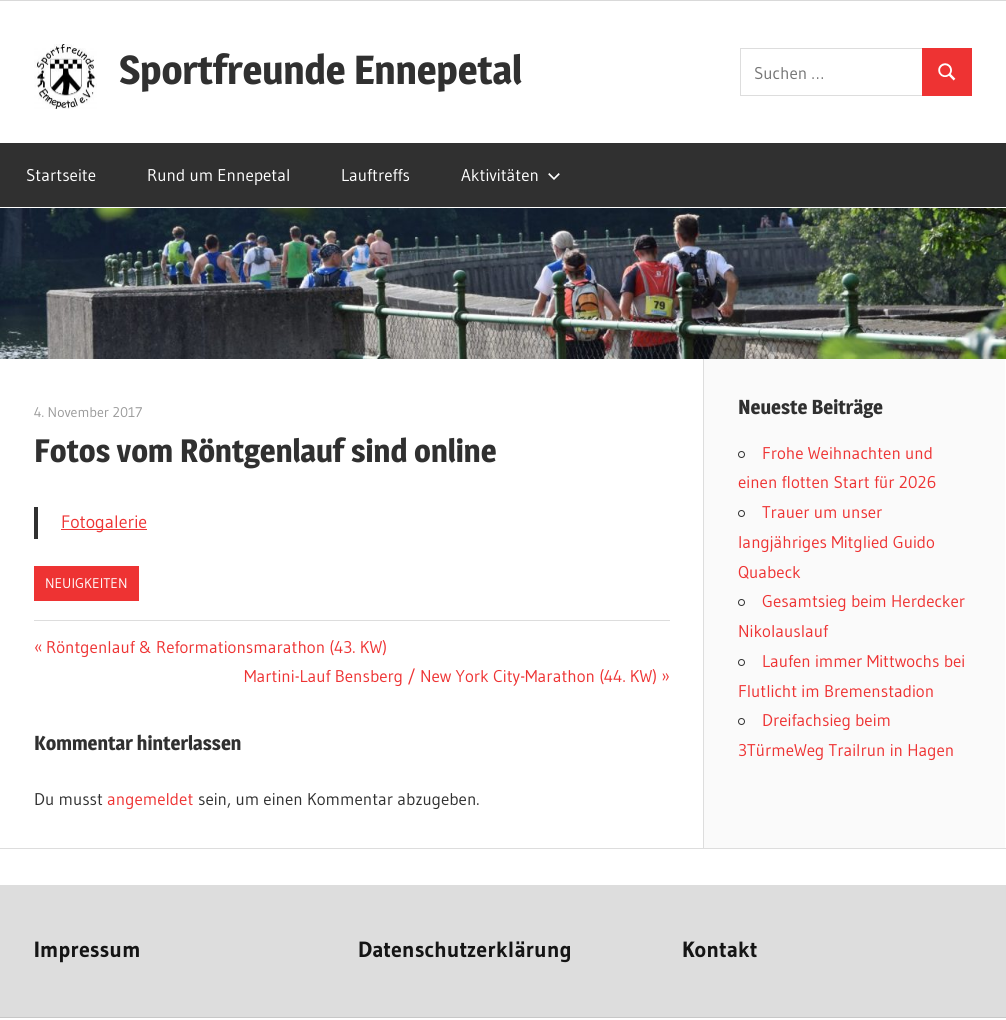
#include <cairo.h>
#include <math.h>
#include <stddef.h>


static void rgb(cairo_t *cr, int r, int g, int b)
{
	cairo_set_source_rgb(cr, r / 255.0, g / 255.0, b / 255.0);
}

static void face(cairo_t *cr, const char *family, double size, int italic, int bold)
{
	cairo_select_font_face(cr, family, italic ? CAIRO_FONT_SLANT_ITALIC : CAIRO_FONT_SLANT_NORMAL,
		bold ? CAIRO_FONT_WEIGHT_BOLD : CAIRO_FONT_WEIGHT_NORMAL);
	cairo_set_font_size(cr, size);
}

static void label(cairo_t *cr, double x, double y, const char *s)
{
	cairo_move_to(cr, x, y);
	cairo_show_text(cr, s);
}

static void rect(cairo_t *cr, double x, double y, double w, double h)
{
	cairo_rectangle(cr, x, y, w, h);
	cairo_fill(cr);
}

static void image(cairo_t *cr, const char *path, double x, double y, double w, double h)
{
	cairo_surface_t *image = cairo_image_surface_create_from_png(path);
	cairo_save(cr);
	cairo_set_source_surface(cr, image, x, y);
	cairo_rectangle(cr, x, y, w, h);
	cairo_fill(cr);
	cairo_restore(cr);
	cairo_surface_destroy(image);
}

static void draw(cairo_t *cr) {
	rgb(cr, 217, 217, 217);
	cairo_paint(cr);
	rgb(cr, 255, 255, 255);
	rect(cr, 0, 1, 1006, 1019);
	image(cr, "image0.png", 34, 44, 63, 65);
	face(cr, "Magra", 40, 0, 1);
	rgb(cr, 48, 48, 48);
	label(cr, 119, 84, "Sportfreunde Ennepetal");
	cairo_rectangle(cr, 740.5, 48.5, 182, 47);
	rgb(cr, 221, 221, 221);
	cairo_set_line_width(cr, 1);
	cairo_stroke(cr);
	face(cr, "Gudea", 17, 0, 0);
	rgb(cr, 117, 117, 117);
	label(cr, 754, 79, "Suchen …");
	rgb(cr, 238, 51, 51);
	rect(cr, 922, 48, 50, 48);
	image(cr, "image1.png", 938, 63, 18, 18);
	rgb(cr, 48, 48, 48);
	rect(cr, 0, 143, 1006, 64);
	rgb(cr, 255, 255, 255);
	label(cr, 26, 181, "Startseite");
	label(cr, 147, 181, "Rund um Ennepetal");
	label(cr, 341, 181, "Lauftreffs");
	label(cr, 461, 181, "Aktivitäten");
	image(cr, "image2.png", 548, 173, 12, 7);
	image(cr, "image3.png", 0, 208, 1006, 151);
	face(cr, "Gudea", 14, 0, 0);
	rgb(cr, 153, 153, 153);
	label(cr, 34, 417, "4. November 2017");
	face(cr, "Magra", 32, 0, 1);
	rgb(cr, 48, 48, 48);
	label(cr, 34, 462, "Fotos vom Röntgenlauf sind online");
	rect(cr, 34, 507, 4, 32);
	rgb(cr, 238, 51, 51);
	rect(cr, 61, 529, 86, 1);
	face(cr, "Gudea", 18, 0, 0);
	label(cr, 61, 528, "Fotogalerie");
	rect(cr, 34, 566, 105, 35);
	face(cr, "Gudea", 14, 0, 0);
	rgb(cr, 255, 255, 255);
	label(cr, 45, 588, "NEUIGKEITEN");
	rgb(cr, 221, 221, 221);
	rect(cr, 34, 620, 636, 1);
	face(cr, "Gudea", 17, 0, 0);
	rgb(cr, 238, 51, 51);
	label(cr, 34, 653, "«");
	label(cr, 46, 653, "Röntgenlauf & Reformationsmarathon (43. KW)");
	label(cr, 244, 682, "Martini-Lauf Bensberg / New York City-Marathon (44. KW) »");
	face(cr, "Magra", 20, 0, 1);
	rgb(cr, 48, 48, 48);
	label(cr, 34, 750, "Kommentar hinterlassen");
	face(cr, "Gudea", 17, 0, 0);
	label(cr, 34, 805, "Du musst");
	rgb(cr, 238, 51, 51);
	label(cr, 107, 805, "angemeldet");
	rgb(cr, 48, 48, 48);
	label(cr, 198, 805, "sein, um einen Kommentar abzugeben.");
	rgb(cr, 250, 250, 250);
	rect(cr, 704, 359, 301, 489);
	rgb(cr, 221, 221, 221);
	rect(cr, 703, 359, 1, 489);
	face(cr, "Magra", 20, 0, 1);
	rgb(cr, 48, 48, 48);
	label(cr, 738, 414, "Neueste Beiträge");
	cairo_new_path(cr);
	cairo_arc(cr, 741.5, 454.5, 3, 0, 2 * M_PI);
	cairo_stroke(cr);
	face(cr, "Gudea", 17, 0, 0);
	rgb(cr, 238, 51, 51);
	label(cr, 762, 459, "Frohe Weihnachten und");
	label(cr, 738, 488, "einen flotten Start für 2026");
	cairo_new_path(cr);
	cairo_arc(cr, 741.5, 513.5, 3, 0, 2 * M_PI);
	rgb(cr, 48, 48, 48);
	cairo_stroke(cr);
	rgb(cr, 238, 51, 51);
	label(cr, 762, 518, "Trauer um unser");
	label(cr, 738, 548, "langjähriges Mitglied Guido");
	label(cr, 738, 578, "Quabeck");
	cairo_new_path(cr);
	cairo_arc(cr, 741.5, 602.5, 3, 0, 2 * M_PI);
	rgb(cr, 48, 48, 48);
	cairo_stroke(cr);
	rgb(cr, 238, 51, 51);
	label(cr, 762, 607, "Gesamtsieg beim Herdecker");
	label(cr, 738, 637, "Nikolauslauf");
	cairo_new_path(cr);
	cairo_arc(cr, 741.5, 662.5, 3, 0, 2 * M_PI);
	rgb(cr, 48, 48, 48);
	cairo_stroke(cr);
	rgb(cr, 238, 51, 51);
	label(cr, 762, 667, "Laufen immer Mittwochs bei");
	label(cr, 738, 697, "Flutlicht im Bremenstadion");
	cairo_new_path(cr);
	cairo_arc(cr, 741.5, 721.5, 3, 0, 2 * M_PI);
	rgb(cr, 48, 48, 48);
	cairo_stroke(cr);
	rgb(cr, 238, 51, 51);
	label(cr, 762, 726, "Dreifachsieg beim");
	label(cr, 738, 756, "3TürmeWeg Trailrun in Hagen");
	rgb(cr, 221, 221, 221);
	rect(cr, 0, 848, 1006, 1);
	rect(cr, 0, 885, 1006, 132);
	rgb(cr, 199, 199, 199);
	rect(cr, 0, 1017, 1006, 1);
	face(cr, "Gudea", 22, 0, 1);
	rgb(cr, 21, 21, 21);
	label(cr, 34, 957, "Impressum");
	label(cr, 358, 957, "Datenschutzerklärung");
	label(cr, 682, 957, "Kontakt");
}

int main(void) {
	cairo_surface_t *surface = cairo_image_surface_create(CAIRO_FORMAT_RGB24, 1006, 1020);
	cairo_t *cr = cairo_create(surface);
	cairo_font_options_t *options = cairo_font_options_create();
	cairo_font_options_set_hint_metrics(options, CAIRO_HINT_METRICS_OFF);
	cairo_font_options_set_hint_style(options, CAIRO_HINT_STYLE_NONE);
	cairo_set_font_options(cr, options);
	cairo_set_miter_limit(cr, 4);
	draw(cr);
	cairo_surface_write_to_png(surface, "render.png");
	cairo_font_options_destroy(options);
	cairo_destroy(cr);
	cairo_surface_destroy(surface);
	return 0;
}
